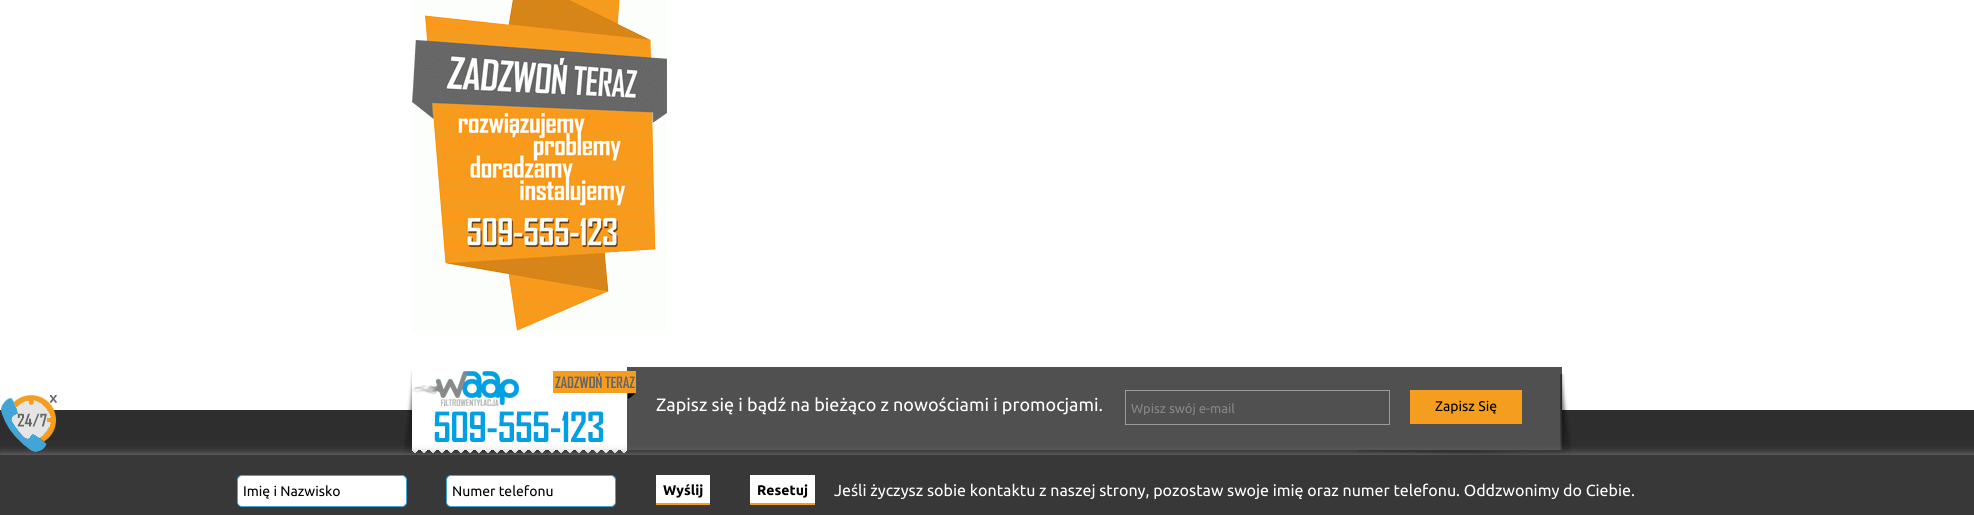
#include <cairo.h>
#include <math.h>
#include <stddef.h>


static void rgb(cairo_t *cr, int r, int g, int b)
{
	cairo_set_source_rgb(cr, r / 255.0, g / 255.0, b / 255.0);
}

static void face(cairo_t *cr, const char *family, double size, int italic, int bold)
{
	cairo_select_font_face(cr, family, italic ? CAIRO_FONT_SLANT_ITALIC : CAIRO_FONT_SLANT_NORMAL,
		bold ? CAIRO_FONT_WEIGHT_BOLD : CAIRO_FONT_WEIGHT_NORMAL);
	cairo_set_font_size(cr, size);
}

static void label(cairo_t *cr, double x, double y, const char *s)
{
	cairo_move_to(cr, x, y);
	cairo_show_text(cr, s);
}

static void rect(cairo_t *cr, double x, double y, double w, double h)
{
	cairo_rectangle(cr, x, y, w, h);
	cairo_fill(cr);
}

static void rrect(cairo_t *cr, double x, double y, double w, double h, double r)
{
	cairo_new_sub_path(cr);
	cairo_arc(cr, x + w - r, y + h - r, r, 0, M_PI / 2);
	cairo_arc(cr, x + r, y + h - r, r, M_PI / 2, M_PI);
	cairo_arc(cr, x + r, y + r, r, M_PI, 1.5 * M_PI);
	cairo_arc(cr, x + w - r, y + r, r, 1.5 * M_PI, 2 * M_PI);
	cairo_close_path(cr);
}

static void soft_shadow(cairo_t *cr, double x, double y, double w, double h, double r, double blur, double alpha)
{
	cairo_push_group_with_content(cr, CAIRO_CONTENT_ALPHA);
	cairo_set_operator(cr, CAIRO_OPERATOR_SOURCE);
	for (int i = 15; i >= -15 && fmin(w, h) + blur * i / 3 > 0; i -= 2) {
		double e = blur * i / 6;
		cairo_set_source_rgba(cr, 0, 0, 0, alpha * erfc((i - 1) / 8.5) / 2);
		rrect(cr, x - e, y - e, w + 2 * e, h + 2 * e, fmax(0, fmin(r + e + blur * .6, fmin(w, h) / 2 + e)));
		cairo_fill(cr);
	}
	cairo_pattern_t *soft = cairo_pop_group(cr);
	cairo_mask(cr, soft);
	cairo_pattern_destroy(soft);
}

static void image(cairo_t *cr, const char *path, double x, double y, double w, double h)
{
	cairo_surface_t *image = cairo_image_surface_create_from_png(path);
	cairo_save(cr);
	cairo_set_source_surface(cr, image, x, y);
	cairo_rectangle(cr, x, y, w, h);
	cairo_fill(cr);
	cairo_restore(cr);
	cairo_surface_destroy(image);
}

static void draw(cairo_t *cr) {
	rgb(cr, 255, 255, 255);
	cairo_paint(cr);
	image(cr, "image0.png", 412, 0, 255, 331);
	rgb(cr, 46, 46, 46);
	rect(cr, 0, 410, 1974, 45);
	image(cr, "image1.png", 404, 372, 209, 83);
	rgb(cr, 80, 80, 80);
	rect(cr, 627, 367, 935, 83);
	image(cr, "image2.png", 412, 367, 224, 86);
	face(cr, "Ubuntu", 18, 0, 0);
	rgb(cr, 255, 255, 255);
	label(cr, 656, 411, "Zapisz się i bądź na bieżąco z nowościami i promocjami.");
	image(cr, "image3.png", 1357, 374, 214, 81);
	cairo_rectangle(cr, 1125.5, 390.5, 264, 34);
	rgb(cr, 156, 155, 155);
	cairo_set_line_width(cr, 1);
	cairo_stroke(cr);
	cairo_save(cr);
	cairo_rectangle(cr, 1131, 401, 253, 14);
	cairo_clip(cr);
	face(cr, "Ubuntu", 13, 0, 0);
	rgb(cr, 134, 134, 134);
	label(cr, 1131, 413, "Wpisz swój e-mail");
	cairo_restore(cr);
	rgb(cr, 245, 157, 30);
	rect(cr, 1410, 390, 112, 34);
	face(cr, "Ubuntu", 14, 0, 0);
	rgb(cr, 0, 0, 0);
	label(cr, 1435, 411, "Zapisz Się");
	rgb(cr, 134, 134, 134);
	soft_shadow(cr, 0, 455, 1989, 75, 0, 5, 1);
	rgb(cr, 56, 56, 56);
	rect(cr, 0, 455, 1974, 60);
	image(cr, "image4.png", 0, 395, 57, 57);
	rgb(cr, 255, 255, 255);
	rrect(cr, 237.5, 475.5, 169, 31, 4.5);
	cairo_fill_preserve(cr);
	rgb(cr, 67, 165, 213);
	cairo_stroke(cr);
	rgb(cr, 0, 0, 0);
	label(cr, 243, 496, "Imię i Nazwisko");
	rgb(cr, 255, 255, 255);
	rrect(cr, 446.5, 475.5, 169, 31, 4.5);
	cairo_fill_preserve(cr);
	rgb(cr, 67, 165, 213);
	cairo_stroke(cr);
	rgb(cr, 0, 0, 0);
	label(cr, 452, 496, "Numer telefonu");
	rgb(cr, 245, 157, 30);
	rect(cr, 656, 503, 54, 2);
	rgb(cr, 255, 255, 255);
	rect(cr, 656, 475, 54, 28);
	face(cr, "Ubuntu", 14, 0, 1);
	rgb(cr, 0, 0, 0);
	label(cr, 663, 495, "Wyślij");
	rgb(cr, 245, 157, 30);
	rect(cr, 750, 503, 65, 2);
	rgb(cr, 255, 255, 255);
	rect(cr, 750, 475, 65, 28);
	rgb(cr, 0, 0, 0);
	label(cr, 757, 495, "Resetuj");
	face(cr, "Ubuntu", 16, 0, 0);
	rgb(cr, 255, 255, 255);
	label(cr, 834, 496, "Jeśli życzysz sobie kontaktu z naszej strony, pozostaw swoje imię oraz numer telefonu. Oddzwonimy do Ciebie.");
}

int main(void) {
	cairo_surface_t *surface = cairo_image_surface_create(CAIRO_FORMAT_RGB24, 1974, 515);
	cairo_t *cr = cairo_create(surface);
	cairo_font_options_t *options = cairo_font_options_create();
	cairo_font_options_set_hint_metrics(options, CAIRO_HINT_METRICS_OFF);
	cairo_font_options_set_hint_style(options, CAIRO_HINT_STYLE_NONE);
	cairo_set_font_options(cr, options);
	cairo_set_miter_limit(cr, 4);
	draw(cr);
	cairo_surface_write_to_png(surface, "render.png");
	cairo_font_options_destroy(options);
	cairo_destroy(cr);
	cairo_surface_destroy(surface);
	return 0;
}
